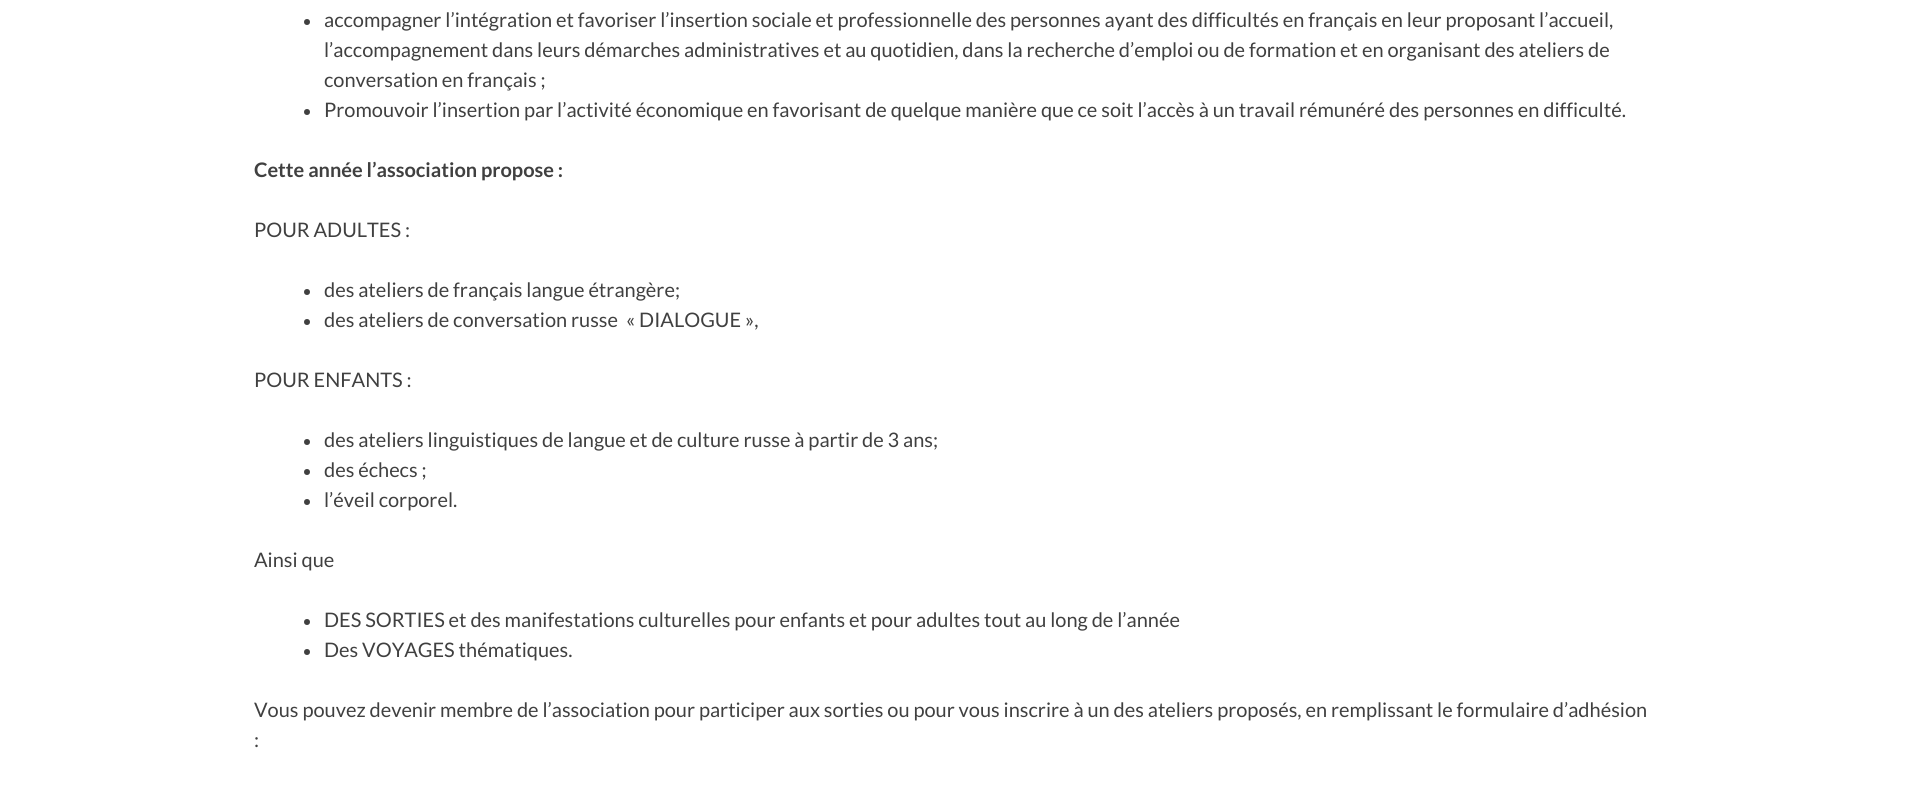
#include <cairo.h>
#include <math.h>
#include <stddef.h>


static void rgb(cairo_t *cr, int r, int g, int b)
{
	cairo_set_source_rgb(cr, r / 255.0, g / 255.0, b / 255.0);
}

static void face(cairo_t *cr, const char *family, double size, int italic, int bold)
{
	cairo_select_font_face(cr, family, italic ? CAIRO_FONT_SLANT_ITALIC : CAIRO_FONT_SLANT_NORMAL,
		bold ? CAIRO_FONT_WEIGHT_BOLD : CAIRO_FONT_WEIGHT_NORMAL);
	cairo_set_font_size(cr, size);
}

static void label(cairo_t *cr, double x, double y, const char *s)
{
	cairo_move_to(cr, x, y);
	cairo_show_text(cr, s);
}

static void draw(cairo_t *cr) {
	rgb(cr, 255, 255, 255);
	cairo_paint(cr);
	rgb(cr, 64, 64, 64);
	cairo_arc(cr, 307, 22, 3, 0, 2 * M_PI);
	cairo_fill(cr);
	face(cr, "Lato", 20, 0, 0);
	label(cr, 324, 27, "accompagner l’intégration et favoriser l’insertion sociale et professionnelle des personnes ayant des difficultés en français en leur proposant l’accueil,");
	label(cr, 324, 57, "l’accompagnement dans leurs démarches administratives et au quotidien, dans la recherche d’emploi ou de formation et en organisant des ateliers de");
	label(cr, 324, 87, "conversation en français ;");
	cairo_new_path(cr);
	cairo_arc(cr, 307, 112, 3, 0, 2 * M_PI);
	cairo_fill(cr);
	label(cr, 324, 117, "Promouvoir l’insertion par l’activité économique en favorisant de quelque manière que ce soit l’accès à un travail rémunéré des personnes en difficulté.");
	face(cr, "Lato", 20, 0, 1);
	label(cr, 254, 177, "Cette année l’association propose :");
	face(cr, "Lato", 20, 0, 0);
	label(cr, 254, 237, "POUR ADULTES :");
	cairo_new_path(cr);
	cairo_arc(cr, 307, 292, 3, 0, 2 * M_PI);
	cairo_fill(cr);
	label(cr, 324, 297, "des ateliers de français langue étrangère;");
	cairo_new_path(cr);
	cairo_arc(cr, 307, 322, 3, 0, 2 * M_PI);
	cairo_fill(cr);
	label(cr, 324, 327, "des ateliers de conversation russe");
	label(cr, 626, 327, "« DIALOGUE »,");
	label(cr, 254, 387, "POUR ENFANTS :");
	cairo_new_path(cr);
	cairo_arc(cr, 307, 442, 3, 0, 2 * M_PI);
	cairo_fill(cr);
	label(cr, 324, 447, "des ateliers linguistiques de langue et de culture russe à partir de 3 ans;");
	cairo_new_path(cr);
	cairo_arc(cr, 307, 472, 3, 0, 2 * M_PI);
	cairo_fill(cr);
	label(cr, 324, 477, "des échecs ;");
	cairo_new_path(cr);
	cairo_arc(cr, 307, 502, 3, 0, 2 * M_PI);
	cairo_fill(cr);
	label(cr, 324, 507, "l’éveil corporel.");
	label(cr, 254, 567, "Ainsi que");
	cairo_new_path(cr);
	cairo_arc(cr, 307, 622, 3, 0, 2 * M_PI);
	cairo_fill(cr);
	label(cr, 324, 627, "DES SORTIES et des manifestations culturelles pour enfants et pour adultes tout au long de l’année");
	cairo_new_path(cr);
	cairo_arc(cr, 307, 652, 3, 0, 2 * M_PI);
	cairo_fill(cr);
	label(cr, 324, 657, "Des VOYAGES thématiques.");
	label(cr, 254, 717, "Vous pouvez devenir membre de l’association pour participer aux sorties ou pour vous inscrire à un des ateliers proposés, en remplissant le formulaire d’adhésion");
	label(cr, 254, 747, ":");
}

int main(void) {
	cairo_surface_t *surface = cairo_image_surface_create(CAIRO_FORMAT_RGB24, 1908, 788);
	cairo_t *cr = cairo_create(surface);
	cairo_font_options_t *options = cairo_font_options_create();
	cairo_font_options_set_hint_metrics(options, CAIRO_HINT_METRICS_OFF);
	cairo_font_options_set_hint_style(options, CAIRO_HINT_STYLE_NONE);
	cairo_set_font_options(cr, options);
	cairo_set_miter_limit(cr, 4);
	draw(cr);
	cairo_surface_write_to_png(surface, "render.png");
	cairo_font_options_destroy(options);
	cairo_destroy(cr);
	cairo_surface_destroy(surface);
	return 0;
}
